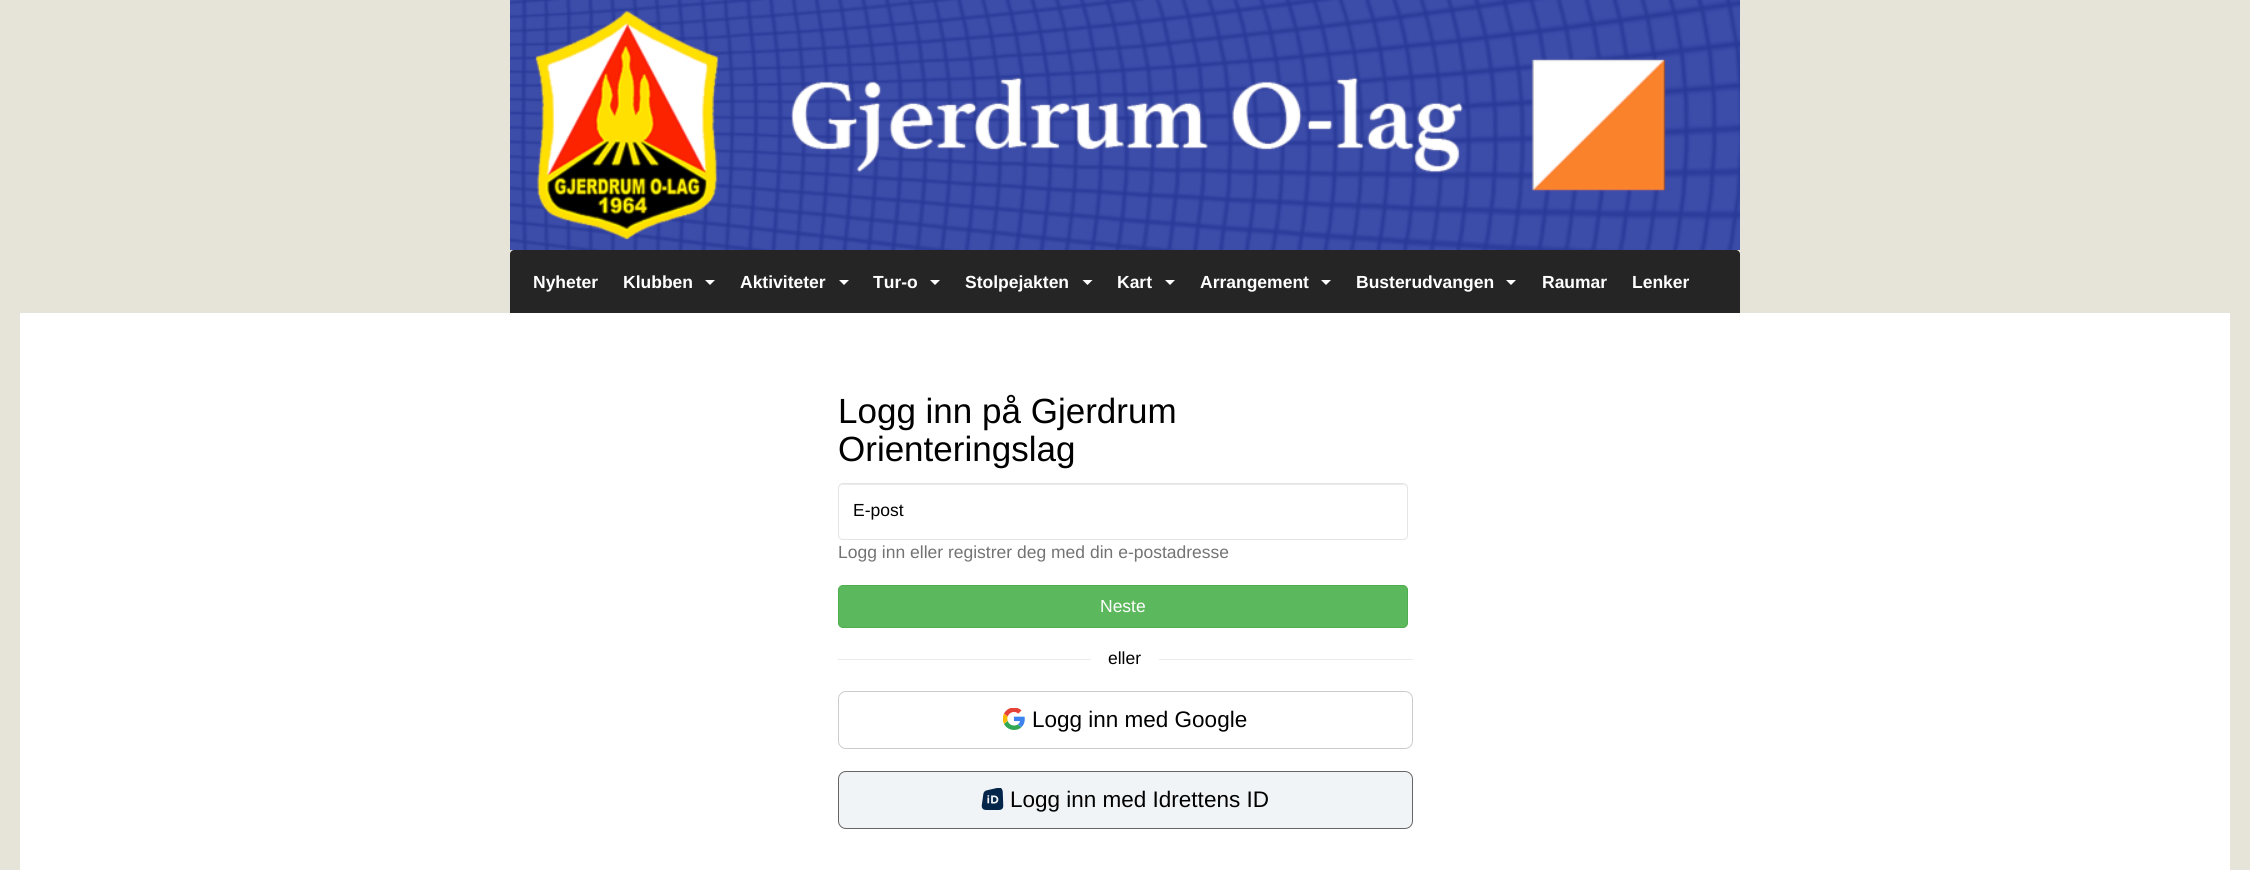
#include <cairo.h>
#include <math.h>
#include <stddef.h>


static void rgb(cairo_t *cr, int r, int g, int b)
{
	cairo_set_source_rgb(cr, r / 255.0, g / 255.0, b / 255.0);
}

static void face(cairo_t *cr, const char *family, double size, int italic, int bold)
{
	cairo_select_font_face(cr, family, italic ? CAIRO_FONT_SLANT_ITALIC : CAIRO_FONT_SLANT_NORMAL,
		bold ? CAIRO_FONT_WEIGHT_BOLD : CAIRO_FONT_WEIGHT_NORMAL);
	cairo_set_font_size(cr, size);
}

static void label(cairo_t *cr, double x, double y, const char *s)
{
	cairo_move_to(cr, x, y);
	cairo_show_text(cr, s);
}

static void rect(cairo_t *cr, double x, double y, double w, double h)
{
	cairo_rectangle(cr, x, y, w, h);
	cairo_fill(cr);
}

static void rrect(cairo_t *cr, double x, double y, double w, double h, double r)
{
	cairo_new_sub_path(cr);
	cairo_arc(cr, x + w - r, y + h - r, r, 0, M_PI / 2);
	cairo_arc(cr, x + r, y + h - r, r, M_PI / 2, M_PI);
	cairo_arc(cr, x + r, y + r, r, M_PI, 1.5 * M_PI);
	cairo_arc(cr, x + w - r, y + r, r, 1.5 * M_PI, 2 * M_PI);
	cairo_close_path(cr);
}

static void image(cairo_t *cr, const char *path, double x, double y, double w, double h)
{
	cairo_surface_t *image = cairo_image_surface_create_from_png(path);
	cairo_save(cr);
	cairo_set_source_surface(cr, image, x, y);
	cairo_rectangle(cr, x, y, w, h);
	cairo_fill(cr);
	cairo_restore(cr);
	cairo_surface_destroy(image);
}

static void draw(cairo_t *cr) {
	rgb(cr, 230, 228, 217);
	cairo_paint(cr);
	image(cr, "image0.png", 510, 0, 1230, 250);
	rgb(cr, 37, 37, 37);
	cairo_new_path(cr);
	cairo_move_to(cr, 514, 250);
	cairo_line_to(cr, 1736, 250);
	cairo_curve_to(cr, 1738, 250, 1740, 252, 1740, 254);
	cairo_line_to(cr, 1740, 313);
	cairo_line_to(cr, 510, 313);
	cairo_line_to(cr, 510, 254);
	cairo_curve_to(cr, 510, 252, 512, 250, 514, 250);
	cairo_close_path(cr);
	cairo_fill(cr);
	face(cr, "Liberation Sans", 17.5, 0, 1);
	rgb(cr, 255, 255, 255);
	label(cr, 533, 288, "Nyheter");
	label(cr, 623, 288, "Klubben");
	cairo_new_path(cr);
	cairo_move_to(cr, 705, 280);
	cairo_line_to(cr, 715, 280);
	cairo_line_to(cr, 710, 285);
	cairo_close_path(cr);
	cairo_fill(cr);
	label(cr, 740, 288, "Aktiviteter");
	cairo_new_path(cr);
	cairo_move_to(cr, 839, 280);
	cairo_line_to(cr, 849, 280);
	cairo_line_to(cr, 844, 285);
	cairo_close_path(cr);
	cairo_fill(cr);
	label(cr, 873, 288, "Tur-o");
	cairo_new_path(cr);
	cairo_move_to(cr, 930, 280);
	cairo_line_to(cr, 940, 280);
	cairo_line_to(cr, 935, 285);
	cairo_close_path(cr);
	cairo_fill(cr);
	label(cr, 965, 288, "Stolpejakten");
	cairo_new_path(cr);
	cairo_move_to(cr, 1082.5, 280);
	cairo_line_to(cr, 1092.5, 280);
	cairo_line_to(cr, 1087.5, 285);
	cairo_close_path(cr);
	cairo_fill(cr);
	label(cr, 1117, 288, "Kart");
	cairo_new_path(cr);
	cairo_move_to(cr, 1165, 280);
	cairo_line_to(cr, 1175, 280);
	cairo_line_to(cr, 1170, 285);
	cairo_close_path(cr);
	cairo_fill(cr);
	label(cr, 1200, 288, "Arrangement");
	cairo_new_path(cr);
	cairo_move_to(cr, 1321, 280);
	cairo_line_to(cr, 1331, 280);
	cairo_line_to(cr, 1326, 285);
	cairo_close_path(cr);
	cairo_fill(cr);
	label(cr, 1356, 288, "Busterudvangen");
	cairo_new_path(cr);
	cairo_move_to(cr, 1506, 280);
	cairo_line_to(cr, 1516, 280);
	cairo_line_to(cr, 1511, 285);
	cairo_close_path(cr);
	cairo_fill(cr);
	label(cr, 1542, 288, "Raumar");
	label(cr, 1632, 288, "Lenker");
	rect(cr, 20, 313, 2210, 557);
	face(cr, "Liberation Sans", 35, 0, 0);
	rgb(cr, 0, 0, 0);
	label(cr, 838, 423, "Logg inn på Gjerdrum");
	label(cr, 838, 461, "Orienteringslag");
	rgb(cr, 236, 236, 236);
	cairo_new_path(cr);
	cairo_move_to(cr, 842, 485);
	cairo_line_to(cr, 1402, 485);
	cairo_curve_to(cr, 1405, 485, 1406, 487, 1406, 489);
	cairo_curve_to(cr, 1406, 486, 1405, 484, 1402, 484);
	cairo_line_to(cr, 843, 484);
	cairo_curve_to(cr, 840, 484, 839, 486, 839, 489);
	cairo_curve_to(cr, 839, 487, 840, 485, 842, 485);
	cairo_close_path(cr);
	cairo_fill(cr);
	rrect(cr, 838.5, 483.5, 569, 56, 4.5);
	rgb(cr, 228, 228, 231);
	cairo_set_line_width(cr, 1);
	cairo_stroke(cr);
	face(cr, "Liberation Sans", 17.5, 0, 0);
	rgb(cr, 0, 0, 0);
	label(cr, 853, 516, "E-post");
	rgb(cr, 115, 115, 115);
	label(cr, 838, 558, "Logg inn eller registrer deg med din e-postadresse");
	rgb(cr, 92, 184, 92);
	rrect(cr, 838.5, 585.5, 569, 42, 4.5);
	cairo_fill_preserve(cr);
	rgb(cr, 76, 174, 76);
	cairo_stroke(cr);
	rgb(cr, 255, 255, 255);
	label(cr, 1100, 612, "Neste");
	rgb(cr, 237, 234, 233);
	rect(cr, 838, 659, 253, 1);
	rgb(cr, 0, 0, 0);
	label(cr, 1108, 664, "eller");
	rgb(cr, 237, 234, 233);
	rect(cr, 1159, 659, 254, 1);
	rrect(cr, 838.5, 691.5, 574, 57, 7.5);
	rgb(cr, 207, 203, 203);
	cairo_stroke(cr);
	image(cr, "image1.png", 1003, 708, 22, 22);
	face(cr, "Liberation Sans", 22.5, 0, 0);
	rgb(cr, 0, 0, 0);
	label(cr, 1032, 727, "Logg inn med Google");
	rgb(cr, 240, 244, 247);
	rrect(cr, 838.5, 771.5, 574, 57, 7.5);
	cairo_fill_preserve(cr);
	rgb(cr, 102, 102, 102);
	cairo_stroke(cr);
	image(cr, "image2.png", 981, 788, 23, 22);
	rgb(cr, 0, 0, 0);
	label(cr, 1010, 807, "Logg inn med Idrettens ID");
}

int main(void) {
	cairo_surface_t *surface = cairo_image_surface_create(CAIRO_FORMAT_RGB24, 2250, 870);
	cairo_t *cr = cairo_create(surface);
	cairo_font_options_t *options = cairo_font_options_create();
	cairo_font_options_set_hint_metrics(options, CAIRO_HINT_METRICS_OFF);
	cairo_font_options_set_hint_style(options, CAIRO_HINT_STYLE_NONE);
	cairo_set_font_options(cr, options);
	cairo_set_miter_limit(cr, 4);
	draw(cr);
	cairo_surface_write_to_png(surface, "render.png");
	cairo_font_options_destroy(options);
	cairo_destroy(cr);
	cairo_surface_destroy(surface);
	return 0;
}
